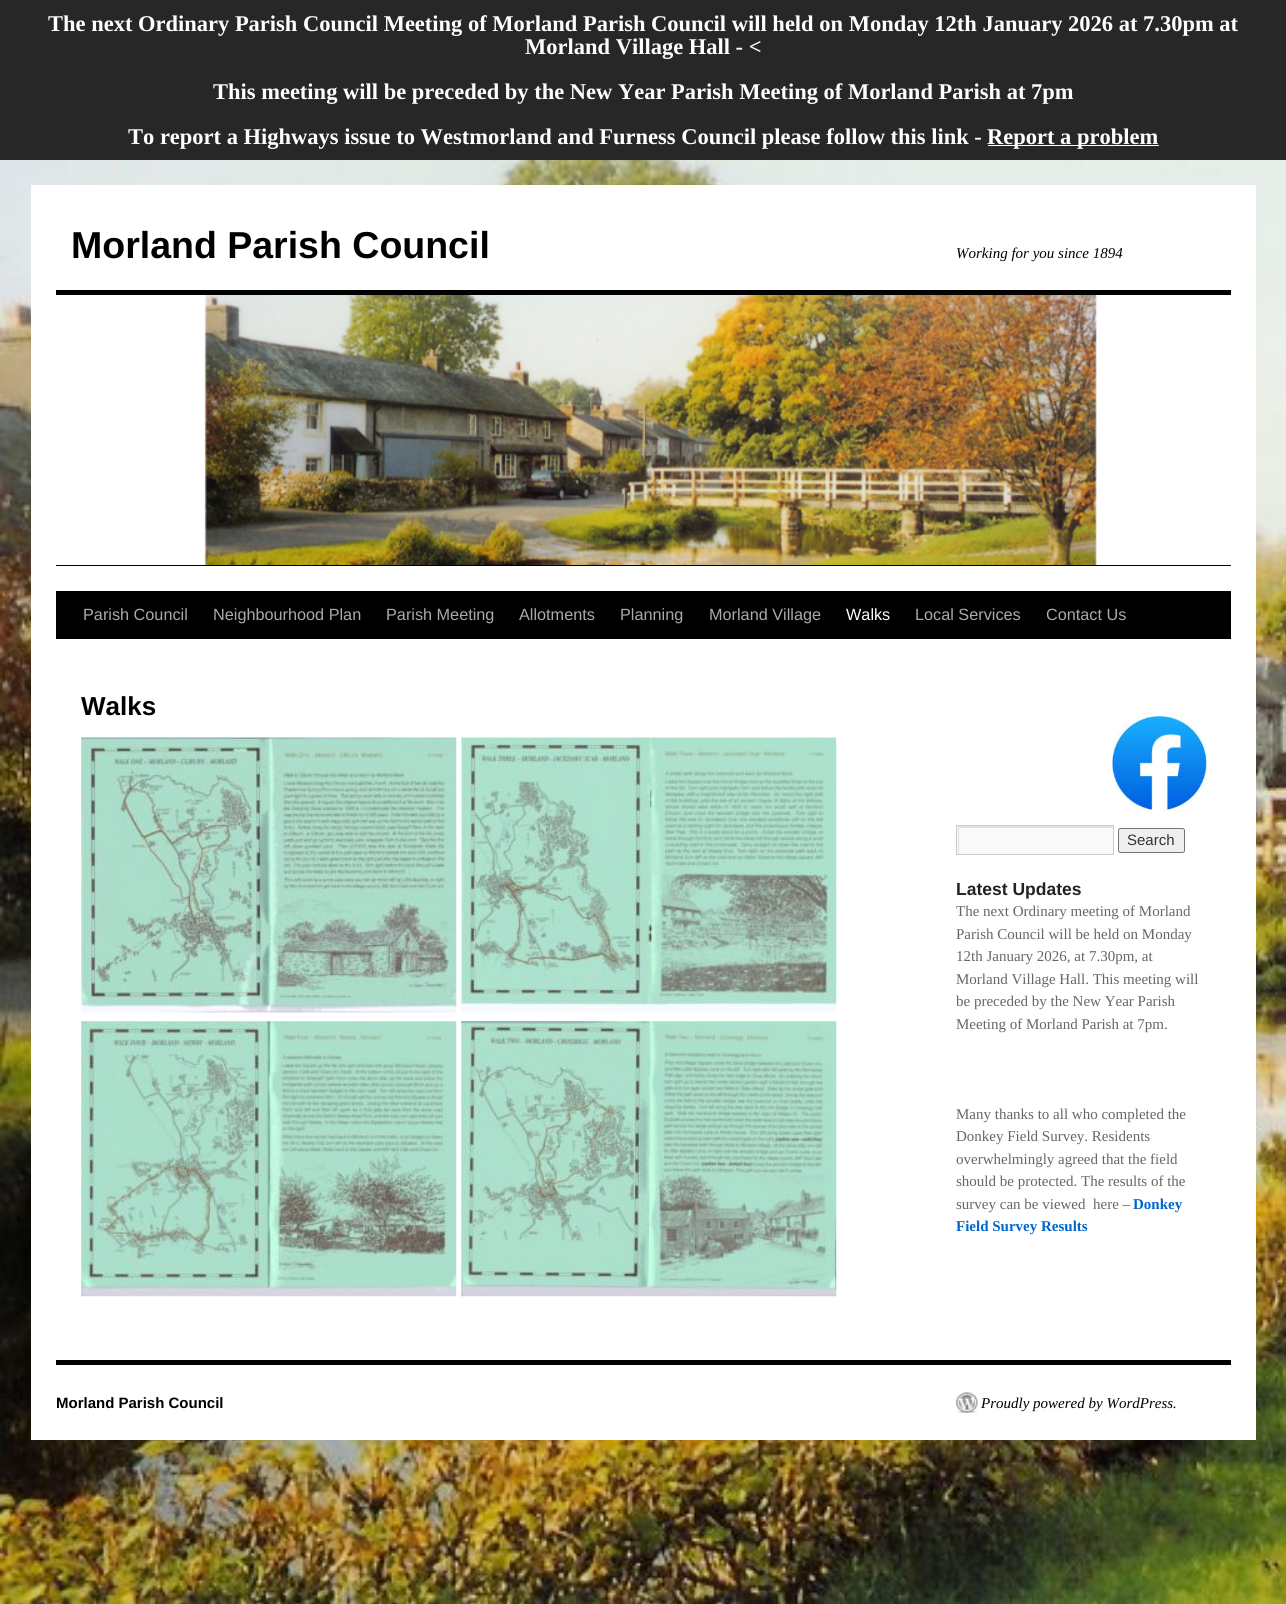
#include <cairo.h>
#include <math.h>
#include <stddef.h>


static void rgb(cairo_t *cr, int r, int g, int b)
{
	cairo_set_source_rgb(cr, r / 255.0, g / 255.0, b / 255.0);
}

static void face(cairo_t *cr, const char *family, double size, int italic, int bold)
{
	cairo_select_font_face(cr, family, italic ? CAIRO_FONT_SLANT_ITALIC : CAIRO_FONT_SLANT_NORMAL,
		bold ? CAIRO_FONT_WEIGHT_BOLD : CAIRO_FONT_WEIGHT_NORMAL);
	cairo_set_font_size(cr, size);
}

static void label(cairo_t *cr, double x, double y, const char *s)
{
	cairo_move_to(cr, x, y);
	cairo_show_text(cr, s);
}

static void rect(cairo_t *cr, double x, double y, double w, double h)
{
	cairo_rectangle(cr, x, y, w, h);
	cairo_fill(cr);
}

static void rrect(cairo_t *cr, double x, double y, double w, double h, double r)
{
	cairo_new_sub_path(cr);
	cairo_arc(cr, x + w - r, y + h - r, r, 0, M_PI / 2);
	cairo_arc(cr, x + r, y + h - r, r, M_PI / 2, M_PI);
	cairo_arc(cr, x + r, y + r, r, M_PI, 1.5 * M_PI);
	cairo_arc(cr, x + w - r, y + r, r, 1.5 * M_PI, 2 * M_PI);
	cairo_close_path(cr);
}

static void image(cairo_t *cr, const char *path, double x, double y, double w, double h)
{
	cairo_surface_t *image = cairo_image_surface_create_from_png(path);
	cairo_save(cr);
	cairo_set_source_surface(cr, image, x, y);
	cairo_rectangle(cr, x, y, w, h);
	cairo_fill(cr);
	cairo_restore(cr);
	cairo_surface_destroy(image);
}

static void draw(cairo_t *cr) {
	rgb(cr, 255, 255, 255);
	cairo_paint(cr);
	image(cr, "image0.png", 0, 160, 1286, 1444);
	rgb(cr, 38, 39, 38);
	rect(cr, 0, 0, 1286, 160);
	face(cr, "Liberation Serif", 22.5, 0, 1);
	rgb(cr, 255, 255, 255);
	label(cr, 48, 31, "The next Ordinary Parish Council Meeting of Morland Parish Council will held on Monday 12th January 2026 at 7.30pm at");
	label(cr, 525, 54, "Morland Village Hall - <");
	label(cr, 213, 99, "This meeting will be preceded by the New Year Parish Meeting of Morland Parish at 7pm");
	label(cr, 128, 144, "To report a Highways issue to Westmorland and Furness Council please follow this link -");
	rgb(cr, 252, 252, 252);
	rect(cr, 988, 145, 171, 1);
	rgb(cr, 255, 255, 255);
	label(cr, 987, 144, "Report a problem");
	rect(cr, 31, 185, 1225, 1255);
	face(cr, "Liberation Sans", 37.5, 0, 1);
	rgb(cr, 0, 0, 0);
	label(cr, 71, 258, "Morland Parish Council");
	face(cr, "Liberation Serif", 15, 1, 0);
	label(cr, 956, 258, "Working for you since 1894");
	rect(cr, 56, 290, 1175, 5);
	rect(cr, 56, 565, 1175, 1);
	image(cr, "image1.png", 204, 295, 893, 270);
	rect(cr, 56, 591, 1175, 48);
	face(cr, "Liberation Sans", 16.25, 0, 0);
	rgb(cr, 170, 170, 170);
	label(cr, 83, 620, "Parish Council");
	label(cr, 213, 620, "Neighbourhood Plan");
	label(cr, 386, 620, "Parish Meeting");
	label(cr, 519, 620, "Allotments");
	label(cr, 620, 620, "Planning");
	label(cr, 709, 620, "Morland Village");
	rgb(cr, 255, 255, 255);
	label(cr, 846, 620, "Walks");
	rgb(cr, 170, 170, 170);
	label(cr, 915, 620, "Local Services");
	label(cr, 1046, 620, "Contact Us");
	face(cr, "Liberation Sans", 26, 0, 1);
	rgb(cr, 0, 0, 0);
	label(cr, 81, 715, "Walks");
	image(cr, "image2.png", 81, 737, 376, 276);
	image(cr, "image3.png", 461, 737, 376, 276);
	image(cr, "image4.png", 81, 1021, 376, 276);
	image(cr, "image5.png", 461, 1021, 376, 276);
	image(cr, "image6.png", 1112, 716, 95, 94);
	rgb(cr, 249, 249, 249);
	rect(cr, 957, 826, 156, 28);
	cairo_save(cr);
	cairo_rectangle(cr, 958, 826, 155, 28);
	cairo_clip(cr);
	rgb(cr, 224, 224, 224);
	cairo_set_fill_rule(cr, CAIRO_FILL_RULE_EVEN_ODD);
	cairo_new_path(cr);
	cairo_move_to(cr, 834, 702);
	cairo_line_to(cr, 1236, 702);
	cairo_line_to(cr, 1236, 978);
	cairo_line_to(cr, 834, 978);
	cairo_close_path(cr);
	cairo_move_to(cr, 959, 828);
	cairo_line_to(cr, 1114, 828);
	cairo_line_to(cr, 1114, 855);
	cairo_line_to(cr, 959, 855);
	cairo_close_path(cr);
	cairo_fill(cr);
	cairo_restore(cr);
	cairo_rectangle(cr, 956.5, 825.5, 157, 29);
	rgb(cr, 204, 204, 204);
	cairo_set_line_width(cr, 1);
	cairo_stroke(cr);
	rgb(cr, 239, 239, 239);
	rrect(cr, 1118.5, 828.5, 66, 24, 2);
	cairo_fill_preserve(cr);
	rgb(cr, 118, 118, 118);
	cairo_stroke(cr);
	face(cr, "Liberation Sans", 15, 0, 0);
	rgb(cr, 51, 51, 51);
	label(cr, 1127, 845, "Search");
	face(cr, "Liberation Sans", 17.5, 0, 1);
	rgb(cr, 34, 34, 34);
	label(cr, 956, 895, "Latest Updates");
	face(cr, "Liberation Serif", 15, 0, 0);
	rgb(cr, 102, 102, 102);
	label(cr, 956, 916, "The next Ordinary meeting of Morland");
	label(cr, 956, 939, "Parish Council will be held on Monday");
	label(cr, 956, 961, "12th January 2026, at 7.30pm, at");
	label(cr, 956, 984, "Morland Village Hall. This meeting will");
	label(cr, 956, 1006, "be preceded by the New Year Parish");
	label(cr, 956, 1029, "Meeting of Morland Parish at 7pm.");
	label(cr, 956, 1119, "Many thanks to all who completed the");
	label(cr, 956, 1141, "Donkey Field Survey. Residents");
	label(cr, 956, 1164, "overwhelmingly agreed that the field");
	label(cr, 956, 1186, "should be protected. The results of the");
	label(cr, 956, 1209, "survey can be viewed  here –");
	face(cr, "Liberation Serif", 15, 0, 1);
	rgb(cr, 0, 102, 204);
	label(cr, 1133, 1209, "Donkey");
	label(cr, 956, 1231, "Field Survey Results");
	rgb(cr, 0, 0, 0);
	rect(cr, 56, 1360, 1175, 5);
	face(cr, "Liberation Sans", 15, 0, 1);
	label(cr, 56, 1408, "Morland Parish Council");
	image(cr, "image7.png", 956, 1392, 22, 21);
	face(cr, "Liberation Serif", 15, 1, 0);
	label(cr, 981, 1408, "Proudly powered by WordPress.");
}

int main(void) {
	cairo_surface_t *surface = cairo_image_surface_create(CAIRO_FORMAT_RGB24, 1286, 1604);
	cairo_t *cr = cairo_create(surface);
	cairo_font_options_t *options = cairo_font_options_create();
	cairo_font_options_set_hint_metrics(options, CAIRO_HINT_METRICS_OFF);
	cairo_font_options_set_hint_style(options, CAIRO_HINT_STYLE_NONE);
	cairo_set_font_options(cr, options);
	cairo_set_miter_limit(cr, 4);
	draw(cr);
	cairo_surface_write_to_png(surface, "render.png");
	cairo_font_options_destroy(options);
	cairo_destroy(cr);
	cairo_surface_destroy(surface);
	return 0;
}
